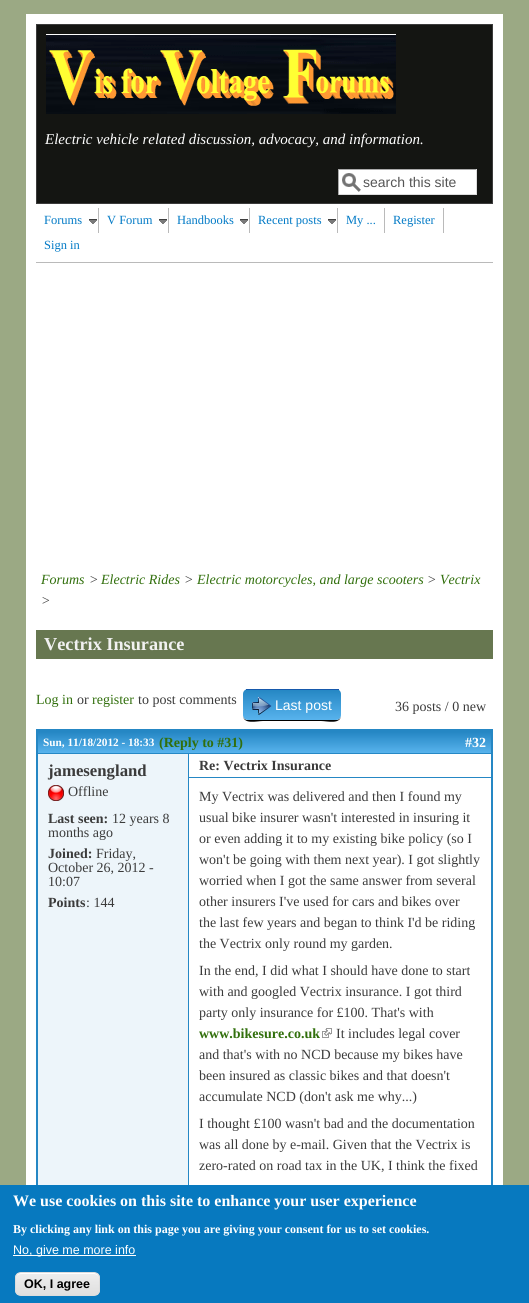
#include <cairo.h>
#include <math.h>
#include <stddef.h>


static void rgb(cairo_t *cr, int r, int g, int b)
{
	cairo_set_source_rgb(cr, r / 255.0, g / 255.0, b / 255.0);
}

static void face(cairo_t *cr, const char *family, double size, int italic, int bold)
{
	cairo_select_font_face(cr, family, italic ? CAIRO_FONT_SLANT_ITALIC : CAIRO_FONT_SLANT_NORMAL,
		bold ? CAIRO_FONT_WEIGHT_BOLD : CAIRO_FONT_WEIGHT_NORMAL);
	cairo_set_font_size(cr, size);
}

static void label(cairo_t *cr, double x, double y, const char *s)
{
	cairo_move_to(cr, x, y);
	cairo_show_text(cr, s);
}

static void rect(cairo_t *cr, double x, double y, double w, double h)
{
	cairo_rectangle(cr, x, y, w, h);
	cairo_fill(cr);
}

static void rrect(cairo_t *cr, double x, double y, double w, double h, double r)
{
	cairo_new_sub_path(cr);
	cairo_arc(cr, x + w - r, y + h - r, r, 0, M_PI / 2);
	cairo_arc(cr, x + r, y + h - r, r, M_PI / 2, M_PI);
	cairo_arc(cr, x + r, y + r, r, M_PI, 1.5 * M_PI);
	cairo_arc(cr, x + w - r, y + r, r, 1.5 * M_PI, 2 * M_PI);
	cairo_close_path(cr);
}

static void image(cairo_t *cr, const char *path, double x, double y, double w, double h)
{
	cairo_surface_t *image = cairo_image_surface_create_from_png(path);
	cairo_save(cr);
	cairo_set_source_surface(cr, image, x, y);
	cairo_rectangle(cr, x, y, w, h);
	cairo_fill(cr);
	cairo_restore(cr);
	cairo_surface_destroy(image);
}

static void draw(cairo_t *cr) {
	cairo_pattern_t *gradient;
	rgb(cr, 155, 169, 132);
	cairo_paint(cr);
	rgb(cr, 255, 255, 255);
	rect(cr, 26, 14, 477, 1171);
	rgb(cr, 20, 21, 18);
	cairo_rectangle(cr, 36.5, 24.5, 456, 179);
	cairo_fill_preserve(cr);
	rgb(cr, 59, 59, 59);
	cairo_set_line_width(cr, 1);
	cairo_stroke(cr);
	image(cr, "image0.png", 46, 34, 350, 80);
	face(cr, "Liberation Serif", 15, 1, 0);
	rgb(cr, 255, 255, 255);
	label(cr, 45, 144, "Electric vehicle related discussion, advocacy, and information.");
	rect(cr, 339, 170, 137, 24);
	image(cr, "image1.png", 342, 173, 19, 19);
	rgb(cr, 170, 170, 170);
	rect(cr, 338, 169, 139, 1);
	rgb(cr, 221, 221, 221);
	rect(cr, 476, 169, 1, 26);
	rect(cr, 338, 194, 139, 1);
	rgb(cr, 170, 170, 170);
	rect(cr, 338, 169, 1, 26);
	face(cr, "Liberation Sans", 14, 0, 0);
	rgb(cr, 85, 85, 85);
	label(cr, 363, 187, "search this site");
	rgb(cr, 186, 186, 186);
	rect(cr, 36, 262, 457, 1);
	image(cr, "image2.png", 89, 219, 8, 5);
	rect(cr, 98, 208, 1, 25);
	face(cr, "Liberation Serif", 12.5, 0, 0);
	rgb(cr, 2, 122, 198);
	label(cr, 44, 224, "Forums");
	image(cr, "image2.png", 159, 219, 8, 5);
	rgb(cr, 186, 186, 186);
	rect(cr, 168, 208, 1, 25);
	rgb(cr, 2, 122, 198);
	label(cr, 107, 224, "V Forum");
	image(cr, "image2.png", 240, 219, 8, 5);
	rgb(cr, 186, 186, 186);
	rect(cr, 249, 208, 1, 25);
	rgb(cr, 2, 122, 198);
	label(cr, 177, 224, "Handbooks");
	image(cr, "image2.png", 328, 219, 8, 5);
	rgb(cr, 186, 186, 186);
	rect(cr, 337, 208, 1, 25);
	rgb(cr, 2, 122, 198);
	label(cr, 258, 224, "Recent posts");
	rgb(cr, 186, 186, 186);
	rect(cr, 384, 208, 1, 25);
	rgb(cr, 2, 122, 198);
	label(cr, 346, 224, "My ...");
	rgb(cr, 186, 186, 186);
	rect(cr, 443, 208, 1, 25);
	rgb(cr, 2, 122, 198);
	label(cr, 393, 224, "Register");
	label(cr, 44, 249, "Sign in");
	face(cr, "Liberation Serif", 14, 1, 0);
	rgb(cr, 49, 111, 12);
	label(cr, 41, 584, "Forums");
	rgb(cr, 59, 59, 59);
	label(cr, 89, 584, ">");
	rgb(cr, 49, 111, 12);
	label(cr, 101, 584, "Electric Rides");
	rgb(cr, 59, 59, 59);
	label(cr, 184, 584, ">");
	rgb(cr, 49, 111, 12);
	label(cr, 197, 584, "Electric motorcycles, and large scooters");
	rgb(cr, 59, 59, 59);
	label(cr, 427, 584, ">");
	rgb(cr, 49, 111, 12);
	label(cr, 440, 584, "Vectrix");
	rgb(cr, 59, 59, 59);
	label(cr, 41, 605, ">");
	rgb(cr, 103, 119, 80);
	rect(cr, 36, 630, 457, 29);
	face(cr, "Liberation Serif", 18.25, 0, 1);
	rgb(cr, 241, 241, 241);
	label(cr, 44, 650, "Vectrix Insurance");
	face(cr, "Liberation Serif", 14, 0, 0);
	rgb(cr, 49, 111, 12);
	label(cr, 36, 704, "Log in");
	rgb(cr, 59, 59, 59);
	label(cr, 77, 704, "or");
	rgb(cr, 49, 111, 12);
	label(cr, 92, 704, "register");
	rgb(cr, 59, 59, 59);
	label(cr, 138, 704, "to post comments");
	rgb(cr, 0, 0, 0);
	cairo_new_path(cr);
	cairo_move_to(cr, 243, 715);
	cairo_curve_to(cr, 243, 725, 257, 721, 263, 721);
	cairo_line_to(cr, 321, 721);
	cairo_curve_to(cr, 327, 721, 341, 725, 341, 715);
	cairo_curve_to(cr, 341, 718, 339, 720, 336, 720);
	cairo_line_to(cr, 248, 720);
	cairo_curve_to(cr, 245, 720, 243, 718, 243, 715);
	cairo_close_path(cr);
	cairo_fill(cr);
	cairo_save(cr);
	rrect(cr, 243, 689, 98, 31, 5);
	cairo_clip(cr);
	gradient = cairo_pattern_create_linear(243, 660, 243, 690);
	cairo_pattern_add_color_stop_rgba(gradient, 0, 0.145, 0.529, 0.769, 1);
	cairo_pattern_add_color_stop_rgba(gradient, 1, 0.345, 0.702, 0.929, 1);
	cairo_set_source(cr, gradient);
	cairo_pattern_destroy(gradient);
	rect(cr, 243, 689, 3, 1);
	gradient = cairo_pattern_create_linear(243, 690, 243, 720);
	cairo_pattern_add_color_stop_rgba(gradient, 0, 0.145, 0.529, 0.769, 1);
	cairo_pattern_add_color_stop_rgba(gradient, 1, 0.345, 0.702, 0.929, 1);
	cairo_set_source(cr, gradient);
	cairo_pattern_destroy(gradient);
	cairo_new_path(cr);
	cairo_move_to(cr, 243, 690);
	cairo_line_to(cr, 341, 690);
	cairo_line_to(cr, 341, 715);
	cairo_curve_to(cr, 341, 718, 339, 720, 336, 720);
	cairo_line_to(cr, 248, 720);
	cairo_curve_to(cr, 245, 720, 243, 718, 243, 715);
	cairo_close_path(cr);
	cairo_fill(cr);
	cairo_restore(cr);
	rgb(cr, 22, 89, 172);
	rect(cr, 246, 689, 93, 1);
	image(cr, "image3.png", 252, 697, 20, 18);
	face(cr, "Liberation Sans", 14, 0, 0);
	rgb(cr, 255, 255, 255);
	label(cr, 275, 710, "Last post");
	face(cr, "Liberation Serif", 14, 0, 0);
	rgb(cr, 59, 59, 59);
	label(cr, 395, 711, "36 posts / 0 new");
	cairo_rectangle(cr, 37, 730, 455, 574);
	rgb(cr, 37, 135, 196);
	cairo_set_line_width(cr, 2);
	cairo_stroke(cr);
	gradient = cairo_pattern_create_linear(38, 732, 38, 753);
	cairo_pattern_add_color_stop_rgba(gradient, 0, 0.145, 0.529, 0.769, 1);
	cairo_pattern_add_color_stop_rgba(gradient, 1, 0.345, 0.702, 0.929, 1);
	cairo_set_source(cr, gradient);
	cairo_pattern_destroy(gradient);
	rect(cr, 38, 732, 453, 21);
	gradient = cairo_pattern_create_linear(38, 753, 38, 774);
	cairo_pattern_add_color_stop_rgba(gradient, 0, 0.145, 0.529, 0.769, 1);
	cairo_pattern_add_color_stop_rgba(gradient, 1, 0.345, 0.702, 0.929, 1);
	cairo_set_source(cr, gradient);
	cairo_pattern_destroy(gradient);
	rect(cr, 38, 753, 453, 1);
	rgb(cr, 37, 135, 196);
	rect(cr, 38, 731, 453, 1);
	face(cr, "Liberation Serif", 11.25, 0, 1);
	rgb(cr, 255, 255, 255);
	label(cr, 43, 746, "Sun, 11/18/2012 - 18:33");
	face(cr, "Liberation Serif", 14, 0, 1);
	rgb(cr, 49, 111, 12);
	label(cr, 159, 747, "(Reply to #31)");
	rgb(cr, 255, 255, 255);
	label(cr, 465, 747, "#32");
	rgb(cr, 237, 245, 250);
	rect(cr, 38, 754, 150, 431);
	face(cr, "Liberation Serif", 16.75, 0, 1);
	rgb(cr, 59, 59, 59);
	label(cr, 48, 776, "jamesengland");
	image(cr, "image4.png", 48, 785, 16, 16);
	face(cr, "Liberation Serif", 14, 0, 0);
	label(cr, 68, 796, "Offline");
	face(cr, "Liberation Serif", 14, 0, 1);
	label(cr, 48, 823, "Last seen:");
	face(cr, "Liberation Serif", 14, 0, 0);
	label(cr, 112, 823, "12 years 8");
	label(cr, 48, 837, "months ago");
	face(cr, "Liberation Serif", 14, 0, 1);
	label(cr, 48, 858, "Joined:");
	face(cr, "Liberation Serif", 14, 0, 0);
	label(cr, 96, 858, "Friday,");
	label(cr, 48, 872, "October 26, 2012 -");
	label(cr, 48, 886, "10:07");
	face(cr, "Liberation Serif", 14, 0, 1);
	label(cr, 48, 907, "Points");
	face(cr, "Liberation Serif", 14, 0, 0);
	label(cr, 86, 907, ": 144");
	rgb(cr, 37, 135, 196);
	rect(cr, 188, 754, 1, 431);
	rect(cr, 189, 777, 302, 1);
	face(cr, "Liberation Serif", 14, 0, 1);
	rgb(cr, 59, 59, 59);
	label(cr, 199, 770, "Re: Vectrix Insurance");
	face(cr, "Liberation Serif", 14, 0, 0);
	label(cr, 199, 801, "My Vectrix was delivered and then I found my");
	label(cr, 199, 822, "usual bike insurer wasn't interested in insuring it");
	label(cr, 199, 843, "or even adding it to my existing bike policy (so I");
	label(cr, 199, 864, "won't be going with them next year). I got slightly");
	label(cr, 199, 885, "worried when I got the same answer from several");
	label(cr, 199, 906, "other insurers I've used for cars and bikes over");
	label(cr, 199, 927, "the last few years and began to think I'd be riding");
	label(cr, 199, 948, "the Vectrix only round my garden.");
	label(cr, 199, 975, "In the end, I did what I should have done to start");
	label(cr, 199, 996, "with and googled Vectrix insurance. I got third");
	label(cr, 199, 1017, "party only insurance for £100. That's with");
	face(cr, "Liberation Serif", 14, 0, 1);
	rgb(cr, 49, 111, 12);
	label(cr, 199, 1038, "www.bikesure.co.uk");
	image(cr, "image5.png", 322, 1028, 10, 10);
	face(cr, "Liberation Serif", 14, 0, 0);
	rgb(cr, 59, 59, 59);
	label(cr, 336, 1038, "It includes legal cover");
	label(cr, 199, 1059, "and that's with no NCD because my bikes have");
	label(cr, 199, 1080, "been insured as classic bikes and that doesn't");
	label(cr, 199, 1101, "accumulate NCD (don't ask me why...)");
	label(cr, 199, 1128, "I thought £100 wasn't bad and the documentation");
	label(cr, 199, 1149, "was all done by e-mail. Given that the Vectrix is");
	label(cr, 199, 1170, "zero-rated on road tax in the UK, I think the fixed");
	rgb(cr, 7, 121, 191);
	rect(cr, 0, 1185, 529, 118);
	face(cr, "Liberation Serif", 16, 0, 1);
	rgb(cr, 255, 255, 255);
	label(cr, 13, 1206, "We use cookies on this site to enhance your user experience");
	face(cr, "Liberation Serif", 12, 0, 1);
	label(cr, 13, 1233, "By clicking any link on this page you are giving your consent for us to set cookies.");
	rect(cr, 13, 1255, 123, 1);
	face(cr, "Liberation Sans", 12.5, 0, 0);
	label(cr, 13, 1254, "No, give me more info");
	cairo_save(cr);
	rrect(cr, 15, 1272, 85, 24, 6);
	cairo_clip(cr);
	gradient = cairo_pattern_create_linear(58, 1273, 58, 1295);
	cairo_pattern_add_color_stop_rgba(gradient, 0.05, 0.929, 0.929, 0.929, 1);
	cairo_pattern_add_color_stop_rgba(gradient, 1, 0.875, 0.875, 0.875, 1);
	cairo_set_source(cr, gradient);
	cairo_pattern_destroy(gradient);
	rect(cr, 15, 1273, 85, 22);
	cairo_restore(cr);
	cairo_new_path(cr);
	cairo_move_to(cr, 21, 1274);
	cairo_line_to(cr, 94, 1274);
	cairo_curve_to(cr, 97, 1274, 99, 1276, 99, 1279);
	cairo_curve_to(cr, 99, 1270, 88, 1273, 82, 1273);
	cairo_line_to(cr, 33, 1273);
	cairo_curve_to(cr, 27, 1273, 16, 1270, 16, 1279);
	cairo_curve_to(cr, 16, 1276, 18, 1274, 21, 1274);
	cairo_close_path(cr);
	cairo_fill(cr);
	rrect(cr, 15.5, 1272.5, 84, 23, 5.5);
	rgb(cr, 220, 220, 220);
	cairo_set_line_width(cr, 1);
	cairo_stroke(cr);
	face(cr, "Liberation Sans", 12.5, 0, 1);
	rgb(cr, 0, 0, 0);
	label(cr, 24, 1288, "OK, I agree");
}

int main(void) {
	cairo_surface_t *surface = cairo_image_surface_create(CAIRO_FORMAT_RGB24, 529, 1303);
	cairo_t *cr = cairo_create(surface);
	cairo_font_options_t *options = cairo_font_options_create();
	cairo_font_options_set_hint_metrics(options, CAIRO_HINT_METRICS_OFF);
	cairo_font_options_set_hint_style(options, CAIRO_HINT_STYLE_NONE);
	cairo_set_font_options(cr, options);
	cairo_set_miter_limit(cr, 4);
	draw(cr);
	cairo_surface_write_to_png(surface, "render.png");
	cairo_font_options_destroy(options);
	cairo_destroy(cr);
	cairo_surface_destroy(surface);
	return 0;
}
